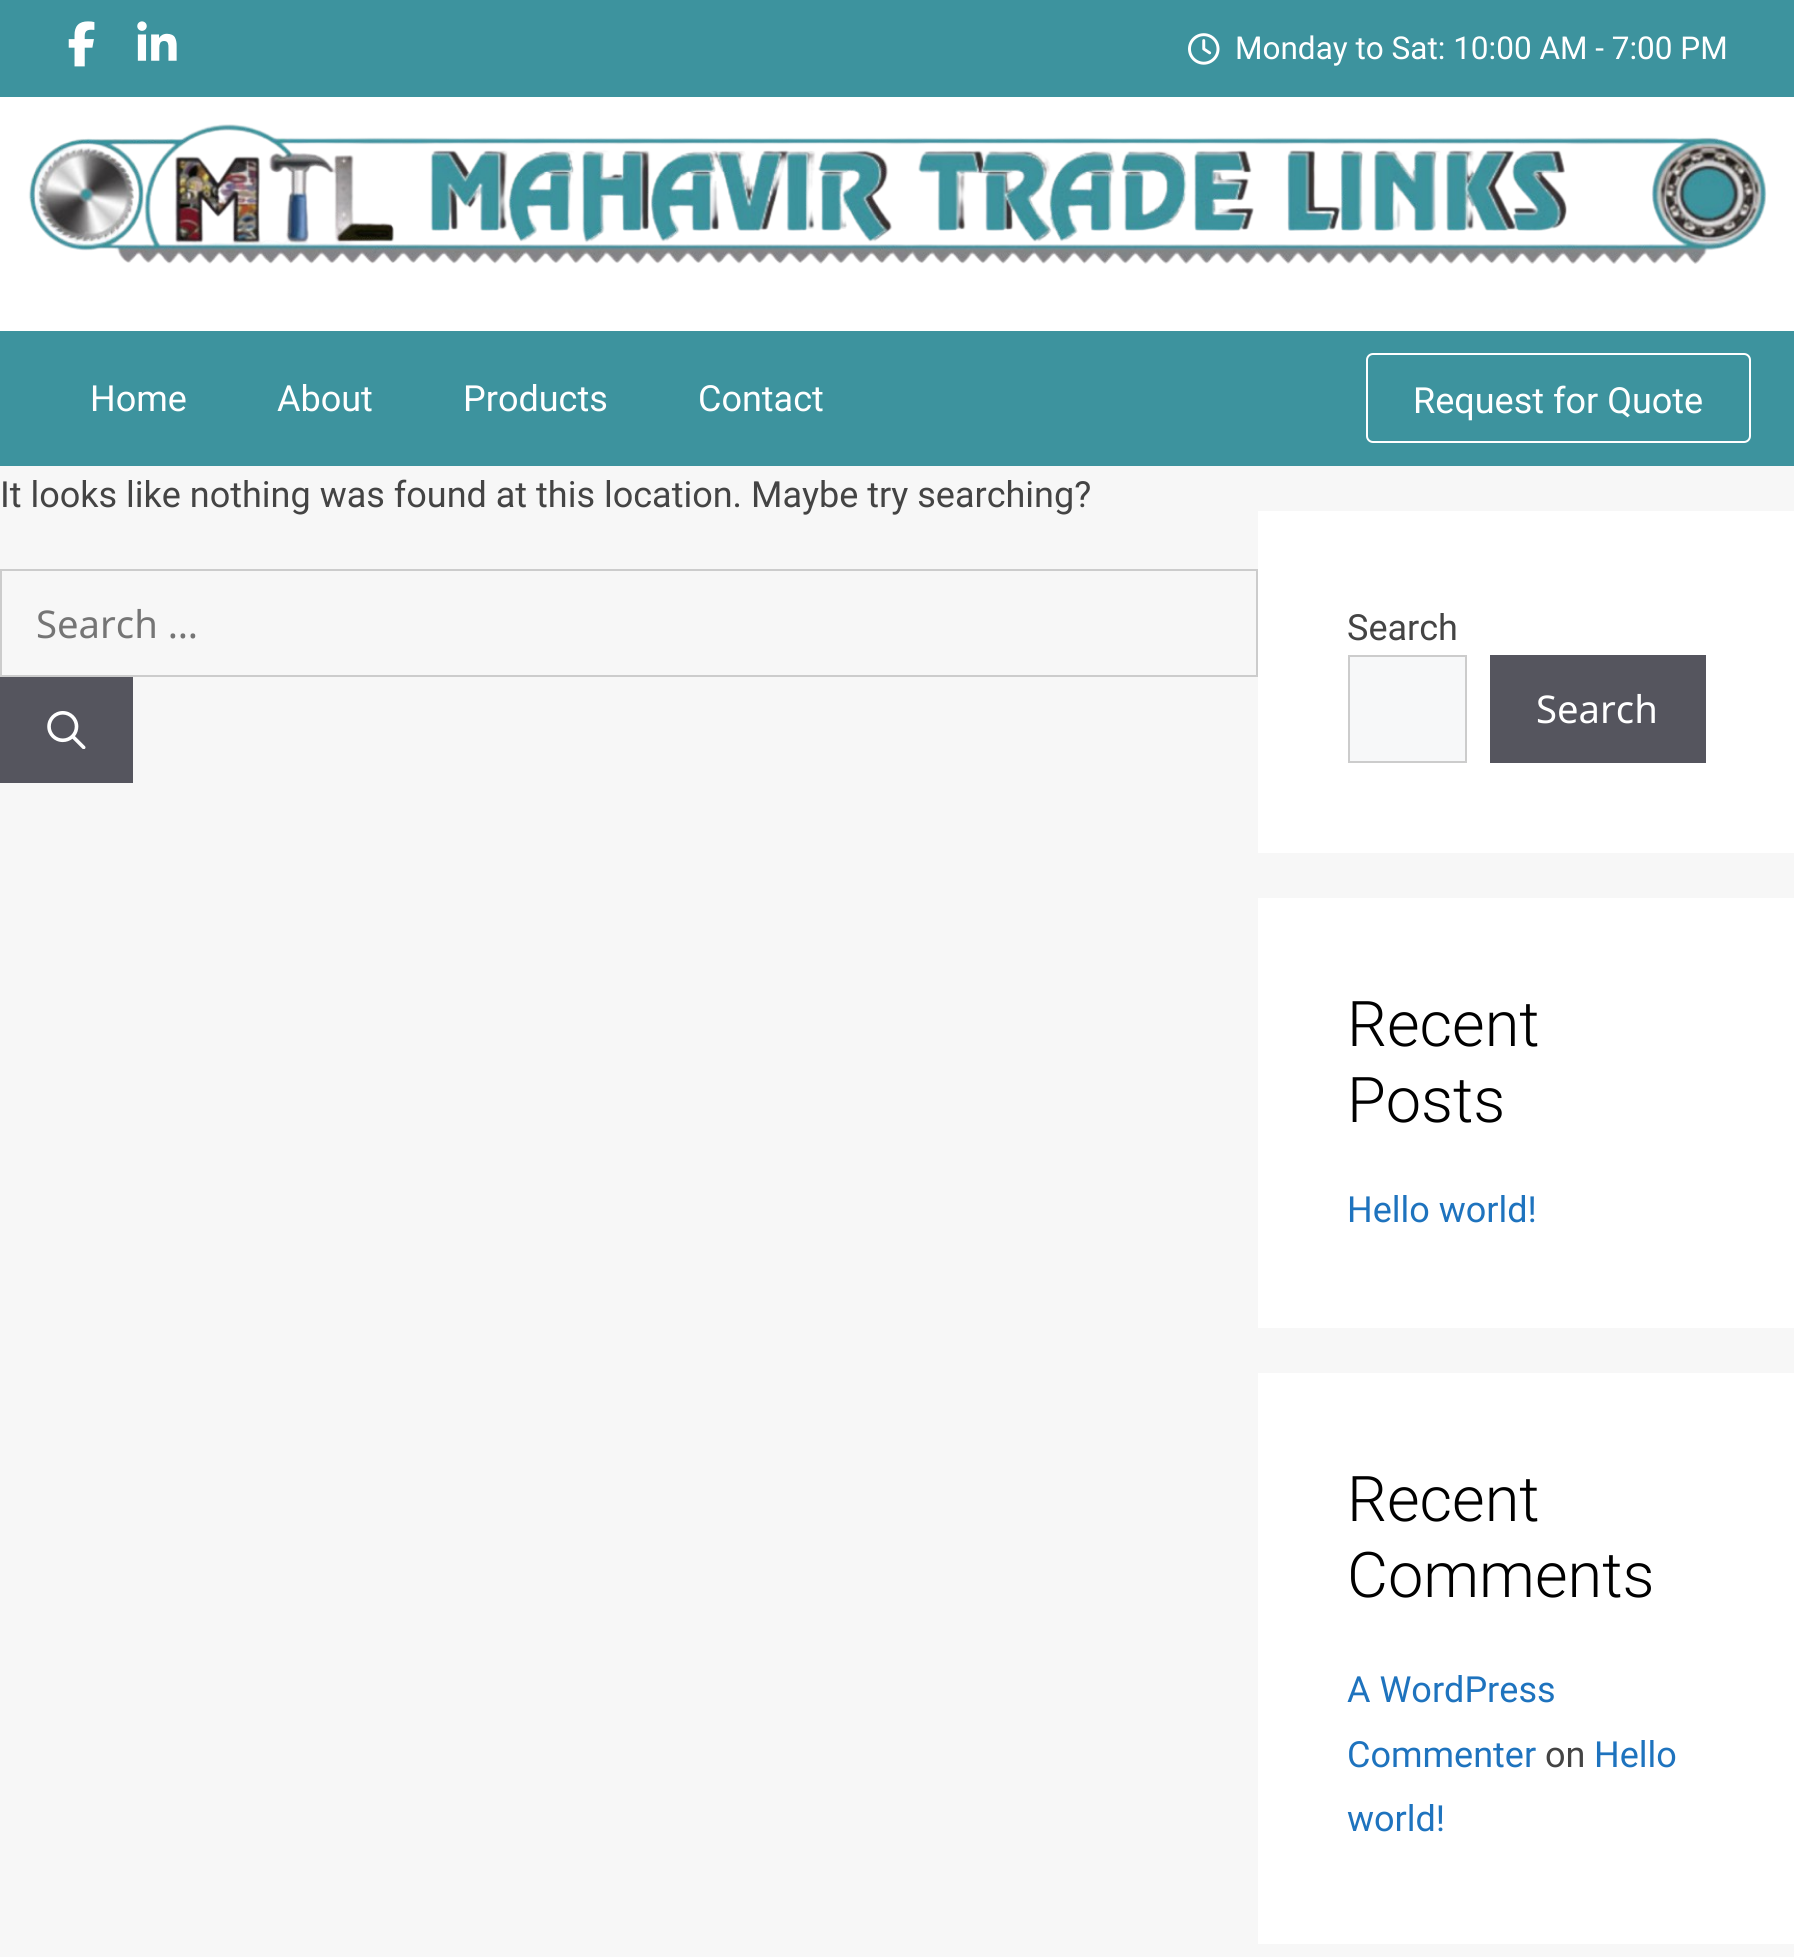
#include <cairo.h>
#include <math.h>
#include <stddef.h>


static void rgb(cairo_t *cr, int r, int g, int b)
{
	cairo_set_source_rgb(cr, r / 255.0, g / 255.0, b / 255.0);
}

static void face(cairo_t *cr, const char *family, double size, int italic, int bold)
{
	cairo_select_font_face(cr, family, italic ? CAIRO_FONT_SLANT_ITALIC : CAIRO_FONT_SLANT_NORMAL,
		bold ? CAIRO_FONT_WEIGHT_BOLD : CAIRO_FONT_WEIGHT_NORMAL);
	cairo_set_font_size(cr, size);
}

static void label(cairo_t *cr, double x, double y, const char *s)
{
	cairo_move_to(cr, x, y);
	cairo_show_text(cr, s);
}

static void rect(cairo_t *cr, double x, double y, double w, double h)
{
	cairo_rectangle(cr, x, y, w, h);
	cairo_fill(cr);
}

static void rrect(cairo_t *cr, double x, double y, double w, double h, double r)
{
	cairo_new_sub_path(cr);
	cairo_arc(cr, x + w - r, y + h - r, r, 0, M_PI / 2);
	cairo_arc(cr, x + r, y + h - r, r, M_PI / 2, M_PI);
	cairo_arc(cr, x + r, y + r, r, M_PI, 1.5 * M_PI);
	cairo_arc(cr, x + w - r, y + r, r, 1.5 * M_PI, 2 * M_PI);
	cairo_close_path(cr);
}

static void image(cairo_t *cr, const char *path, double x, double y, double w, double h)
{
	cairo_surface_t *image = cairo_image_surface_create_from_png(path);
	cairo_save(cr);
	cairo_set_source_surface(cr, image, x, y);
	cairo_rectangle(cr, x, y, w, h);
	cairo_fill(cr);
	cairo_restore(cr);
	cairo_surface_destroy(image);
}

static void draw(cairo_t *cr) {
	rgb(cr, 247, 247, 247);
	cairo_paint(cr);
	rgb(cr, 61, 147, 158);
	rect(cr, 0, 0, 1794, 97);
	image(cr, "image0.png", 68, 21, 27, 46);
	image(cr, "image1.png", 137, 21, 40, 40);
	image(cr, "image2.png", 1188, 33, 32, 32);
	face(cr, "Roboto", 31.5, 0, 0);
	rgb(cr, 255, 255, 255);
	label(cr, 1235, 59, "Monday to Sat: 10:00 AM - 7:00 PM");
	rect(cr, 0, 97, 1794, 234);
	image(cr, "image3.png", 28, 124, 1739, 140);
	rgb(cr, 61, 147, 158);
	rect(cr, 0, 331, 1794, 135);
	face(cr, "Roboto", 36, 0, 0);
	rgb(cr, 255, 255, 255);
	label(cr, 90, 411, "Home");
	label(cr, 277, 411, "About");
	label(cr, 463, 411, "Products");
	label(cr, 698, 411, "Contact");
	rrect(cr, 1367, 354, 383, 88, 6);
	cairo_stroke(cr);
	label(cr, 1413, 413, "Request for Quote");
	rgb(cr, 68, 68, 68);
	label(cr, 0, 507, "It looks like nothing was found at this location. Maybe try searching?");
	cairo_rectangle(cr, 1, 570, 1256, 106);
	rgb(cr, 204, 204, 204);
	cairo_stroke(cr);
	face(cr, "Noto Sans", 38.25, 0, 0);
	rgb(cr, 117, 117, 117);
	label(cr, 36, 638, "Search …");
	rgb(cr, 85, 85, 94);
	rect(cr, 0, 677, 133, 106);
	image(cr, "image4.png", 47, 711, 39, 38);
	rgb(cr, 255, 255, 255);
	rect(cr, 1258, 511, 536, 342);
	face(cr, "Roboto", 36, 0, 0);
	rgb(cr, 68, 68, 68);
	label(cr, 1347, 640, "Search");
	rgb(cr, 247, 248, 249);
	cairo_rectangle(cr, 1349, 656, 117, 106);
	cairo_fill_preserve(cr);
	rgb(cr, 204, 204, 204);
	cairo_stroke(cr);
	rgb(cr, 85, 85, 94);
	rect(cr, 1490, 655, 216, 108);
	face(cr, "Noto Sans", 38.25, 0, 0);
	rgb(cr, 255, 255, 255);
	label(cr, 1536, 723, "Search");
	rect(cr, 1258, 898, 536, 430);
	face(cr, "Roboto Light", 63, 0, 0);
	rgb(cr, 0, 0, 0);
	label(cr, 1347, 1046, "Recent");
	label(cr, 1347, 1122, "Posts");
	face(cr, "Roboto", 36, 0, 0);
	rgb(cr, 30, 115, 190);
	label(cr, 1347, 1222, "Hello world!");
	rgb(cr, 255, 255, 255);
	rect(cr, 1258, 1373, 536, 571);
	face(cr, "Roboto Light", 63, 0, 0);
	rgb(cr, 0, 0, 0);
	label(cr, 1347, 1521, "Recent");
	label(cr, 1347, 1597, "Comments");
	face(cr, "Roboto", 36, 0, 0);
	rgb(cr, 30, 115, 190);
	label(cr, 1347, 1702, "A WordPress");
	label(cr, 1347, 1767, "Commenter");
	rgb(cr, 68, 68, 68);
	label(cr, 1545, 1767, "on");
	rgb(cr, 30, 115, 190);
	label(cr, 1594, 1767, "Hello");
	label(cr, 1347, 1831, "world!");
}

int main(void) {
	cairo_surface_t *surface = cairo_image_surface_create(CAIRO_FORMAT_RGB24, 1794, 1957);
	cairo_t *cr = cairo_create(surface);
	cairo_font_options_t *options = cairo_font_options_create();
	cairo_font_options_set_hint_metrics(options, CAIRO_HINT_METRICS_OFF);
	cairo_font_options_set_hint_style(options, CAIRO_HINT_STYLE_NONE);
	cairo_set_font_options(cr, options);
	cairo_set_miter_limit(cr, 4);
	draw(cr);
	cairo_surface_write_to_png(surface, "render.png");
	cairo_font_options_destroy(options);
	cairo_destroy(cr);
	cairo_surface_destroy(surface);
	return 0;
}
